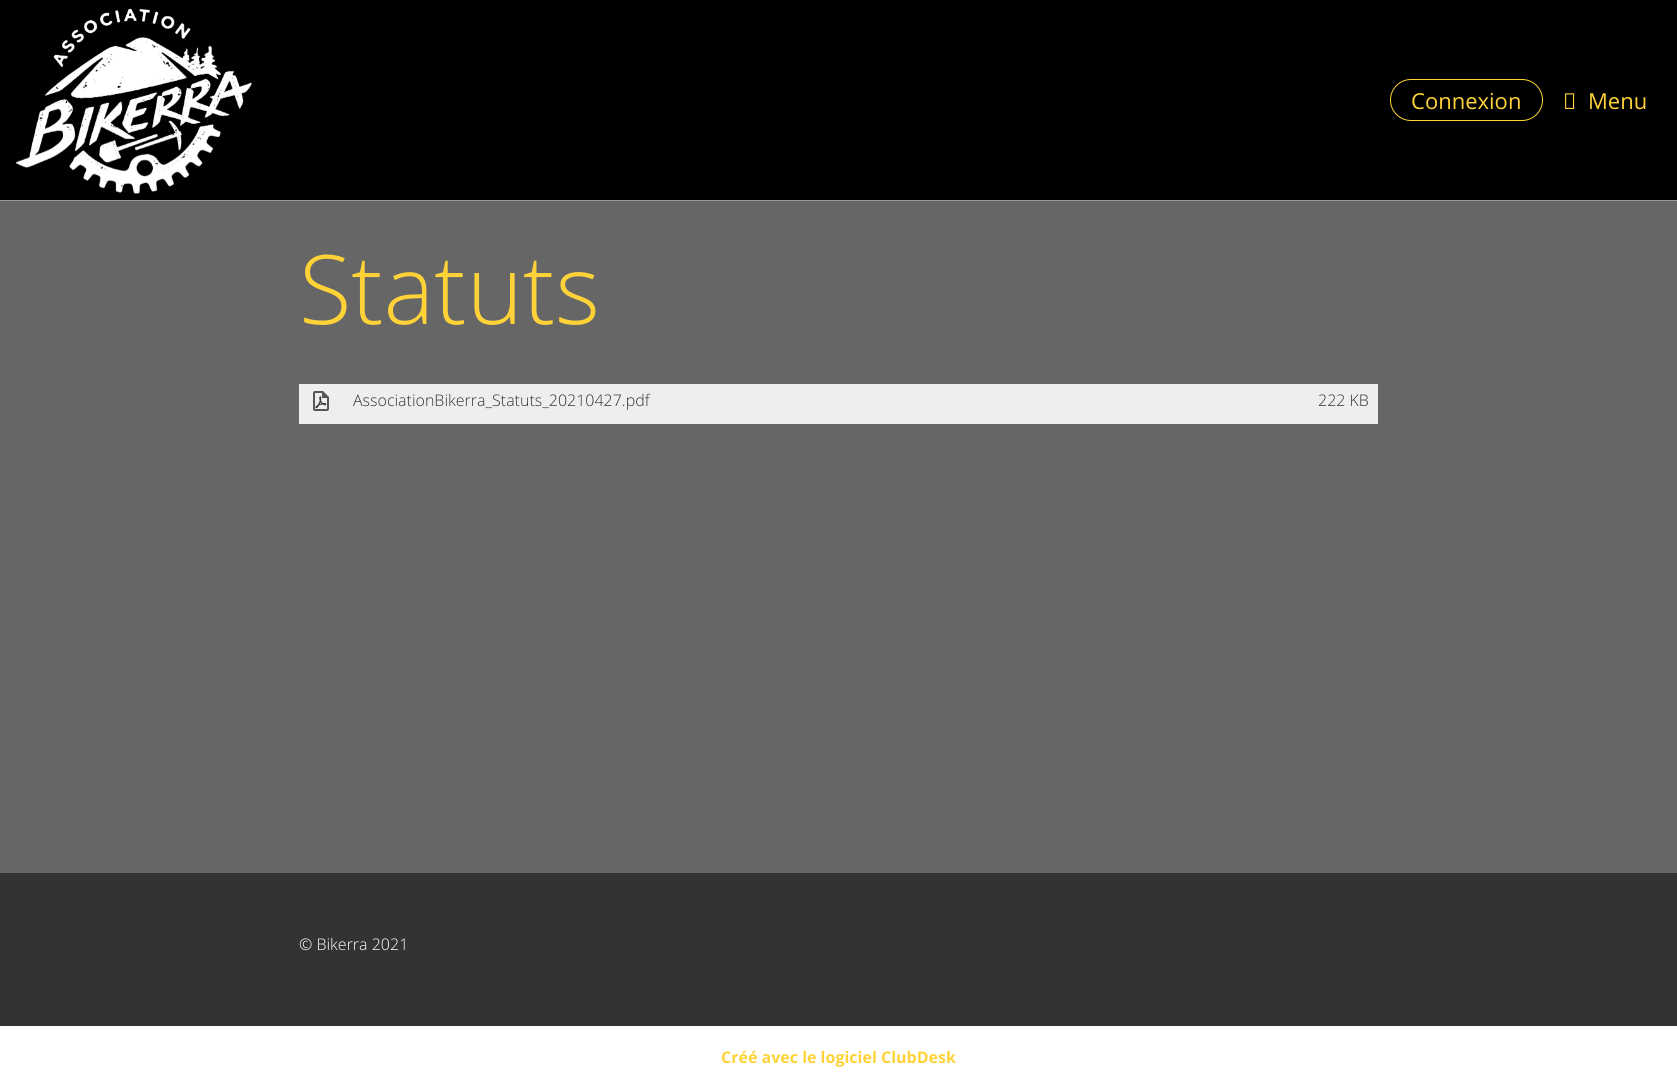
#include <cairo.h>
#include <math.h>
#include <stddef.h>


static void rgb(cairo_t *cr, int r, int g, int b)
{
	cairo_set_source_rgb(cr, r / 255.0, g / 255.0, b / 255.0);
}

static void face(cairo_t *cr, const char *family, double size, int italic, int bold)
{
	cairo_select_font_face(cr, family, italic ? CAIRO_FONT_SLANT_ITALIC : CAIRO_FONT_SLANT_NORMAL,
		bold ? CAIRO_FONT_WEIGHT_BOLD : CAIRO_FONT_WEIGHT_NORMAL);
	cairo_set_font_size(cr, size);
}

static void label(cairo_t *cr, double x, double y, const char *s)
{
	cairo_move_to(cr, x, y);
	cairo_show_text(cr, s);
}

static void rect(cairo_t *cr, double x, double y, double w, double h)
{
	cairo_rectangle(cr, x, y, w, h);
	cairo_fill(cr);
}

static void rrect(cairo_t *cr, double x, double y, double w, double h, double r)
{
	cairo_new_sub_path(cr);
	cairo_arc(cr, x + w - r, y + h - r, r, 0, M_PI / 2);
	cairo_arc(cr, x + r, y + h - r, r, M_PI / 2, M_PI);
	cairo_arc(cr, x + r, y + r, r, M_PI, 1.5 * M_PI);
	cairo_arc(cr, x + w - r, y + r, r, 1.5 * M_PI, 2 * M_PI);
	cairo_close_path(cr);
}

static void image(cairo_t *cr, const char *path, double x, double y, double w, double h)
{
	cairo_surface_t *image = cairo_image_surface_create_from_png(path);
	cairo_save(cr);
	cairo_set_source_surface(cr, image, x, y);
	cairo_rectangle(cr, x, y, w, h);
	cairo_fill(cr);
	cairo_restore(cr);
	cairo_surface_destroy(image);
}

static void draw(cairo_t *cr) {
	rgb(cr, 255, 255, 255);
	cairo_paint(cr);
	rgb(cr, 0, 0, 0);
	rect(cr, 0, 0, 1677, 200);
	rgb(cr, 153, 153, 153);
	rect(cr, 0, 200, 1677, 1);
	image(cr, "image0.png", 15, 8, 237, 186);
	rrect(cr, 1390.5, 79.5, 152, 41, 20.5);
	rgb(cr, 255, 211, 55);
	cairo_set_line_width(cr, 1);
	cairo_stroke(cr);
	face(cr, "Open Sans", 22, 0, 0);
	label(cr, 1411, 109, "Connexion");
	image(cr, "image1.png", 1565, 93, 10, 16);
	label(cr, 1588, 109, "Menu");
	rgb(cr, 102, 102, 102);
	rect(cr, 0, 201, 1677, 672);
	face(cr, "Open Sans Light", 96, 0, 0);
	rgb(cr, 255, 211, 55);
	label(cr, 299, 324, "Statuts");
	rgb(cr, 238, 238, 238);
	rect(cr, 299, 384, 1079, 40);
	image(cr, "image2.png", 313, 391, 16, 20);
	face(cr, "Open Sans Light", 16, 0, 0);
	rgb(cr, 51, 51, 51);
	label(cr, 353, 406, "AssociationBikerra_Statuts_20210427.pdf");
	label(cr, 1318, 406, "222 KB");
	rect(cr, 0, 873, 1677, 153);
	rgb(cr, 255, 255, 255);
	label(cr, 299, 950, "© Bikerra 2021");
	face(cr, "Open Sans", 16, 0, 1);
	rgb(cr, 255, 211, 55);
	label(cr, 721, 1063, "Créé avec le logiciel ClubDesk");
}

int main(void) {
	cairo_surface_t *surface = cairo_image_surface_create(CAIRO_FORMAT_RGB24, 1677, 1088);
	cairo_t *cr = cairo_create(surface);
	cairo_font_options_t *options = cairo_font_options_create();
	cairo_font_options_set_hint_metrics(options, CAIRO_HINT_METRICS_OFF);
	cairo_font_options_set_hint_style(options, CAIRO_HINT_STYLE_NONE);
	cairo_set_font_options(cr, options);
	cairo_set_miter_limit(cr, 4);
	draw(cr);
	cairo_surface_write_to_png(surface, "render.png");
	cairo_font_options_destroy(options);
	cairo_destroy(cr);
	cairo_surface_destroy(surface);
	return 0;
}
